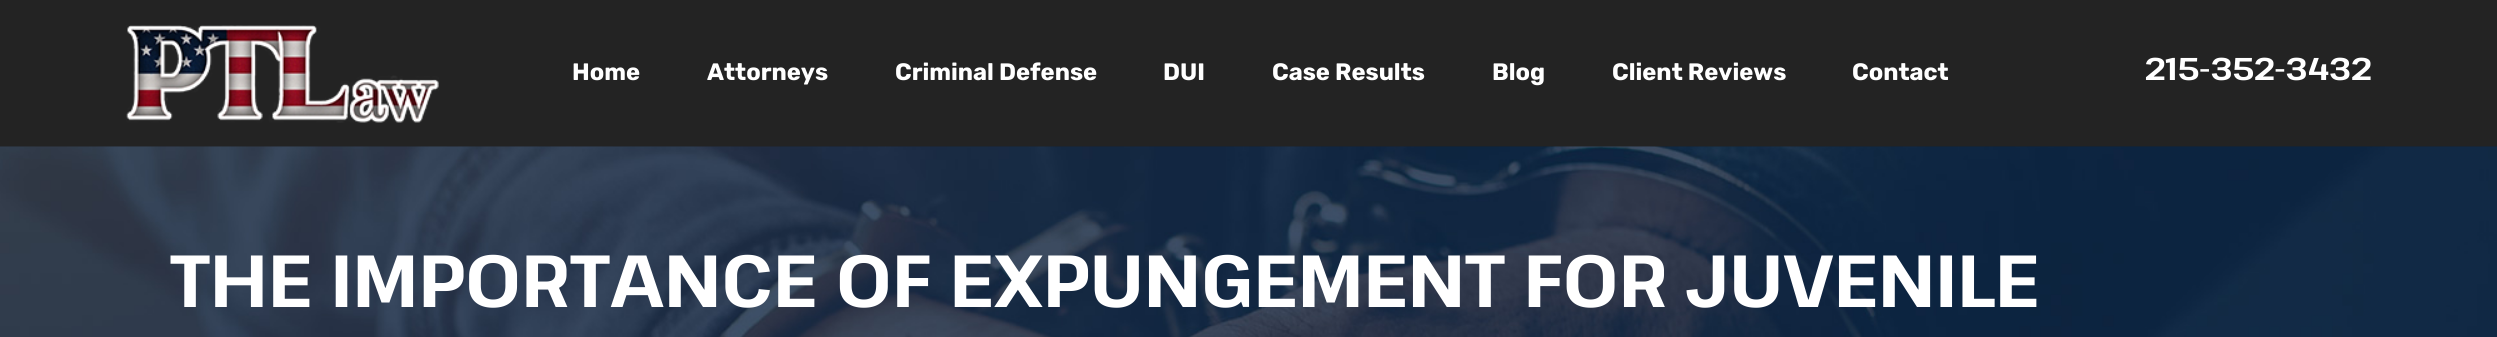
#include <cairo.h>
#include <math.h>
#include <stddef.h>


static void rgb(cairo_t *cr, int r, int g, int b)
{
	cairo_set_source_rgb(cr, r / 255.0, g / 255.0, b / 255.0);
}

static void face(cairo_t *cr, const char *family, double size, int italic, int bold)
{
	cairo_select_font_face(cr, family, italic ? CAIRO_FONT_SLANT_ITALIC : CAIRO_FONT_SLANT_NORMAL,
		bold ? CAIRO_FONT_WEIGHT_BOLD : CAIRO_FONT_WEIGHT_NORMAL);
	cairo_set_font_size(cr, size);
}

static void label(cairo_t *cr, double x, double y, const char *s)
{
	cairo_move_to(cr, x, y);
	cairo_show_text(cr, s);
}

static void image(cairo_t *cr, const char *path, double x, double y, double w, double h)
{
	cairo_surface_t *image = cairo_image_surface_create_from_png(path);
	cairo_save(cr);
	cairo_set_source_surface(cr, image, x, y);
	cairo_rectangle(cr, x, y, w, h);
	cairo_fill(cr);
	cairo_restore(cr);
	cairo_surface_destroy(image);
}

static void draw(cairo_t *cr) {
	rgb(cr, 35, 35, 35);
	cairo_paint(cr);
	image(cr, "image0.png", 126, 25, 313, 98);
	face(cr, "Rubik", 23.75, 0, 1);
	rgb(cr, 255, 255, 255);
	label(cr, 572, 80, "Home");
	label(cr, 707, 80, "Attorneys");
	label(cr, 895, 80, "Criminal Defense");
	label(cr, 1163, 80, "DUI");
	label(cr, 1272, 80, "Case Results");
	label(cr, 1492, 80, "Blog");
	label(cr, 1612, 80, "Client Reviews");
	label(cr, 1852, 80, "Contact");
	face(cr, "Pathway Extreme", 31.5, 0, 1);
	label(cr, 2145, 80, "215-352-3432");
	image(cr, "image1.png", 0, 146, 2497, 191);
	face(cr, "Pathway Extreme", 73.6, 0, 1);
	label(cr, 170, 307, "THE IMPORTANCE OF EXPUNGEMENT FOR JUVENILE");
}

int main(void) {
	cairo_surface_t *surface = cairo_image_surface_create(CAIRO_FORMAT_RGB24, 2497, 337);
	cairo_t *cr = cairo_create(surface);
	cairo_font_options_t *options = cairo_font_options_create();
	cairo_font_options_set_hint_metrics(options, CAIRO_HINT_METRICS_OFF);
	cairo_font_options_set_hint_style(options, CAIRO_HINT_STYLE_NONE);
	cairo_set_font_options(cr, options);
	cairo_set_miter_limit(cr, 4);
	draw(cr);
	cairo_surface_write_to_png(surface, "render.png");
	cairo_font_options_destroy(options);
	cairo_destroy(cr);
	cairo_surface_destroy(surface);
	return 0;
}
